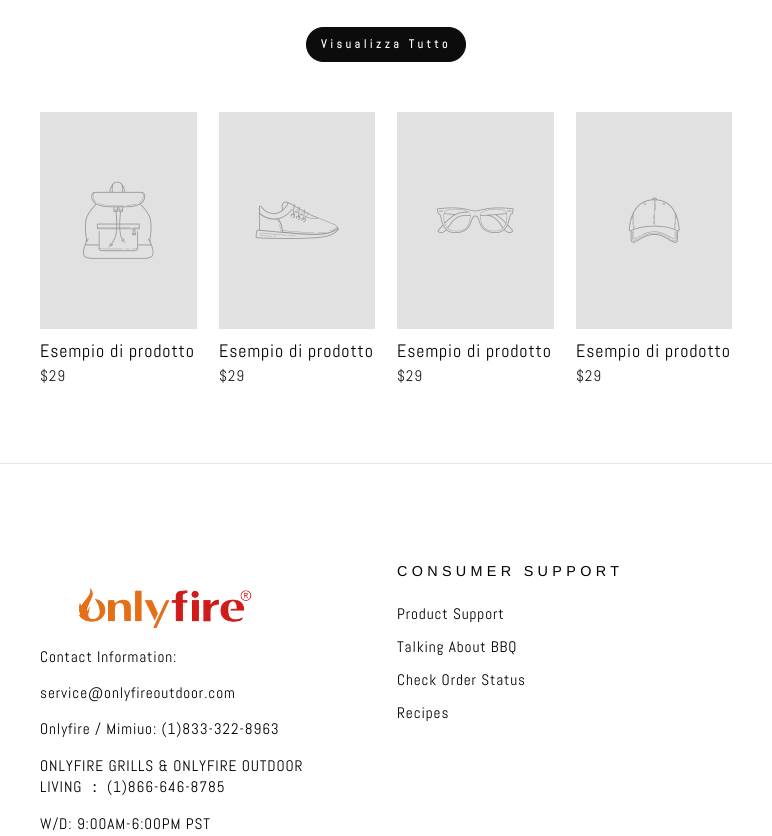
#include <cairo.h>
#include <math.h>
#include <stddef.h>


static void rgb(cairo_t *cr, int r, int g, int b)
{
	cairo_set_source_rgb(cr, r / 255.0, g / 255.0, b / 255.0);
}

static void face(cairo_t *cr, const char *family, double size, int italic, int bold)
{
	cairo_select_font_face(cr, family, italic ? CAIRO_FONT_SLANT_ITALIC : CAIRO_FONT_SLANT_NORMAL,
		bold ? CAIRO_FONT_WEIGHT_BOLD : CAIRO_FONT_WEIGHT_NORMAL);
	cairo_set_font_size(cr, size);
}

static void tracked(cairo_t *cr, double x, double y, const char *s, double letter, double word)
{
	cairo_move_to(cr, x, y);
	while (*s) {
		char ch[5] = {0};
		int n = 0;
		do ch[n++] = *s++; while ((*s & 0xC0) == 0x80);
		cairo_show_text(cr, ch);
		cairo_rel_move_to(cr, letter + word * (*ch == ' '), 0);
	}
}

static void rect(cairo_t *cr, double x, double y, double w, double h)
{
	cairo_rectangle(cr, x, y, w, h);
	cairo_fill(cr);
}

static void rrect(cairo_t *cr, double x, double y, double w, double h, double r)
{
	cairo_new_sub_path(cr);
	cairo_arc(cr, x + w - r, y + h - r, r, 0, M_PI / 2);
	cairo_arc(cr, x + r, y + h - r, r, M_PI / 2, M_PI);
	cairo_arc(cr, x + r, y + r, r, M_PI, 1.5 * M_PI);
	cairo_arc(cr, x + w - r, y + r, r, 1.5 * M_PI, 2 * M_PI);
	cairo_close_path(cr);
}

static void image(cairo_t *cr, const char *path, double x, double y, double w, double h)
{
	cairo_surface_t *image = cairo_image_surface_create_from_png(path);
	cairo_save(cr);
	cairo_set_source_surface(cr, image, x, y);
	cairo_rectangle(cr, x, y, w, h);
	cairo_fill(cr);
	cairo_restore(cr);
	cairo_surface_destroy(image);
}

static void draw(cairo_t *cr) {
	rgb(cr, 255, 255, 255);
	cairo_paint(cr);
	rgb(cr, 13, 12, 12);
	rrect(cr, 306.5, 27.5, 159, 34, 17);
	cairo_fill_preserve(cr);
	cairo_set_line_width(cr, 1);
	cairo_stroke(cr);
	face(cr, "Abel", 12, 0, 1);
	rgb(cr, 255, 255, 255);
	tracked(cr, 321, 48, "Visualizza Tutto", 3.6, 0);
	rgb(cr, 225, 225, 225);
	rect(cr, 40, 112, 157, 217);
	image(cr, "image0.png", 83, 181, 71, 78);
	face(cr, "Abel", 18, 0, 0);
	rgb(cr, 0, 0, 0);
	tracked(cr, 40, 357, "Esempio di prodotto", 0.9, 0);
	face(cr, "Abel", 15.25, 0, 0);
	rgb(cr, 28, 29, 29);
	tracked(cr, 40, 381, "$29", 0.9, 0);
	rgb(cr, 225, 225, 225);
	rect(cr, 219, 112, 156, 217);
	image(cr, "image1.png", 255, 201, 84, 38);
	face(cr, "Abel", 18, 0, 0);
	rgb(cr, 0, 0, 0);
	tracked(cr, 219, 357, "Esempio di prodotto", 0.9, 0);
	face(cr, "Abel", 15.25, 0, 0);
	rgb(cr, 28, 29, 29);
	tracked(cr, 219, 381, "$29", 0.9, 0);
	rgb(cr, 225, 225, 225);
	rect(cr, 397, 112, 157, 217);
	image(cr, "image2.png", 436, 207, 78, 27);
	face(cr, "Abel", 18, 0, 0);
	rgb(cr, 0, 0, 0);
	tracked(cr, 397, 357, "Esempio di prodotto", 0.9, 0);
	face(cr, "Abel", 15.25, 0, 0);
	rgb(cr, 28, 29, 29);
	tracked(cr, 397, 381, "$29", 0.9, 0);
	rgb(cr, 225, 225, 225);
	rect(cr, 576, 112, 156, 217);
	image(cr, "image3.png", 628, 197, 52, 46);
	face(cr, "Abel", 18, 0, 0);
	rgb(cr, 0, 0, 0);
	tracked(cr, 576, 357, "Esempio di prodotto", 0.9, 0);
	face(cr, "Abel", 15.25, 0, 0);
	rgb(cr, 28, 29, 29);
	tracked(cr, 576, 381, "$29", 0.9, 0);
	rgb(cr, 230, 230, 230);
	rect(cr, 0, 463, 772, 1);
	image(cr, "image4.png", 78, 588, 174, 41);
	rgb(cr, 0, 0, 0);
	tracked(cr, 40, 662, "Contact Information:", 0.9, 0);
	tracked(cr, 40, 698, "service@onlyfireoutdoor.com", 0.9, 0);
	tracked(cr, 40, 734, "Onlyfire / Mimiuo: (1)833-322-8963", 0.9, 0);
	tracked(cr, 40, 771, "ONLYFIRE GRILLS & ONLYFIRE OUTDOOR", 0.9, 0);
	tracked(cr, 40, 792, "LIVING", 0.9, 0);
	face(cr, "WenQuanYi Zen Hei Medium", 15.25, 0, 0);
	tracked(cr, 87, 792, "：", 0.9, 0);
	face(cr, "Abel", 15.25, 0, 0);
	tracked(cr, 107, 792, "(1)866-646-8785", 0.9, 0);
	tracked(cr, 40, 829, "W/D: 9:00AM-6:00PM PST", 0.9, 0);
	face(cr, "Liberation Sans", 14.4, 0, 0);
	tracked(cr, 397, 576, "CONSUMER SUPPORT", 4.3, 0);
	face(cr, "Abel", 15.25, 0, 0);
	tracked(cr, 397, 619, "Product Support", 0.9, 0);
	tracked(cr, 397, 652, "Talking About BBQ", 0.9, 0);
	tracked(cr, 397, 685, "Check Order Status", 0.9, 0);
	tracked(cr, 397, 718, "Recipes", 0.9, 0);
}

int main(void) {
	cairo_surface_t *surface = cairo_image_surface_create(CAIRO_FORMAT_RGB24, 772, 836);
	cairo_t *cr = cairo_create(surface);
	cairo_font_options_t *options = cairo_font_options_create();
	cairo_font_options_set_hint_metrics(options, CAIRO_HINT_METRICS_OFF);
	cairo_font_options_set_hint_style(options, CAIRO_HINT_STYLE_NONE);
	cairo_set_font_options(cr, options);
	cairo_set_miter_limit(cr, 4);
	draw(cr);
	cairo_surface_write_to_png(surface, "render.png");
	cairo_font_options_destroy(options);
	cairo_destroy(cr);
	cairo_surface_destroy(surface);
	return 0;
}
